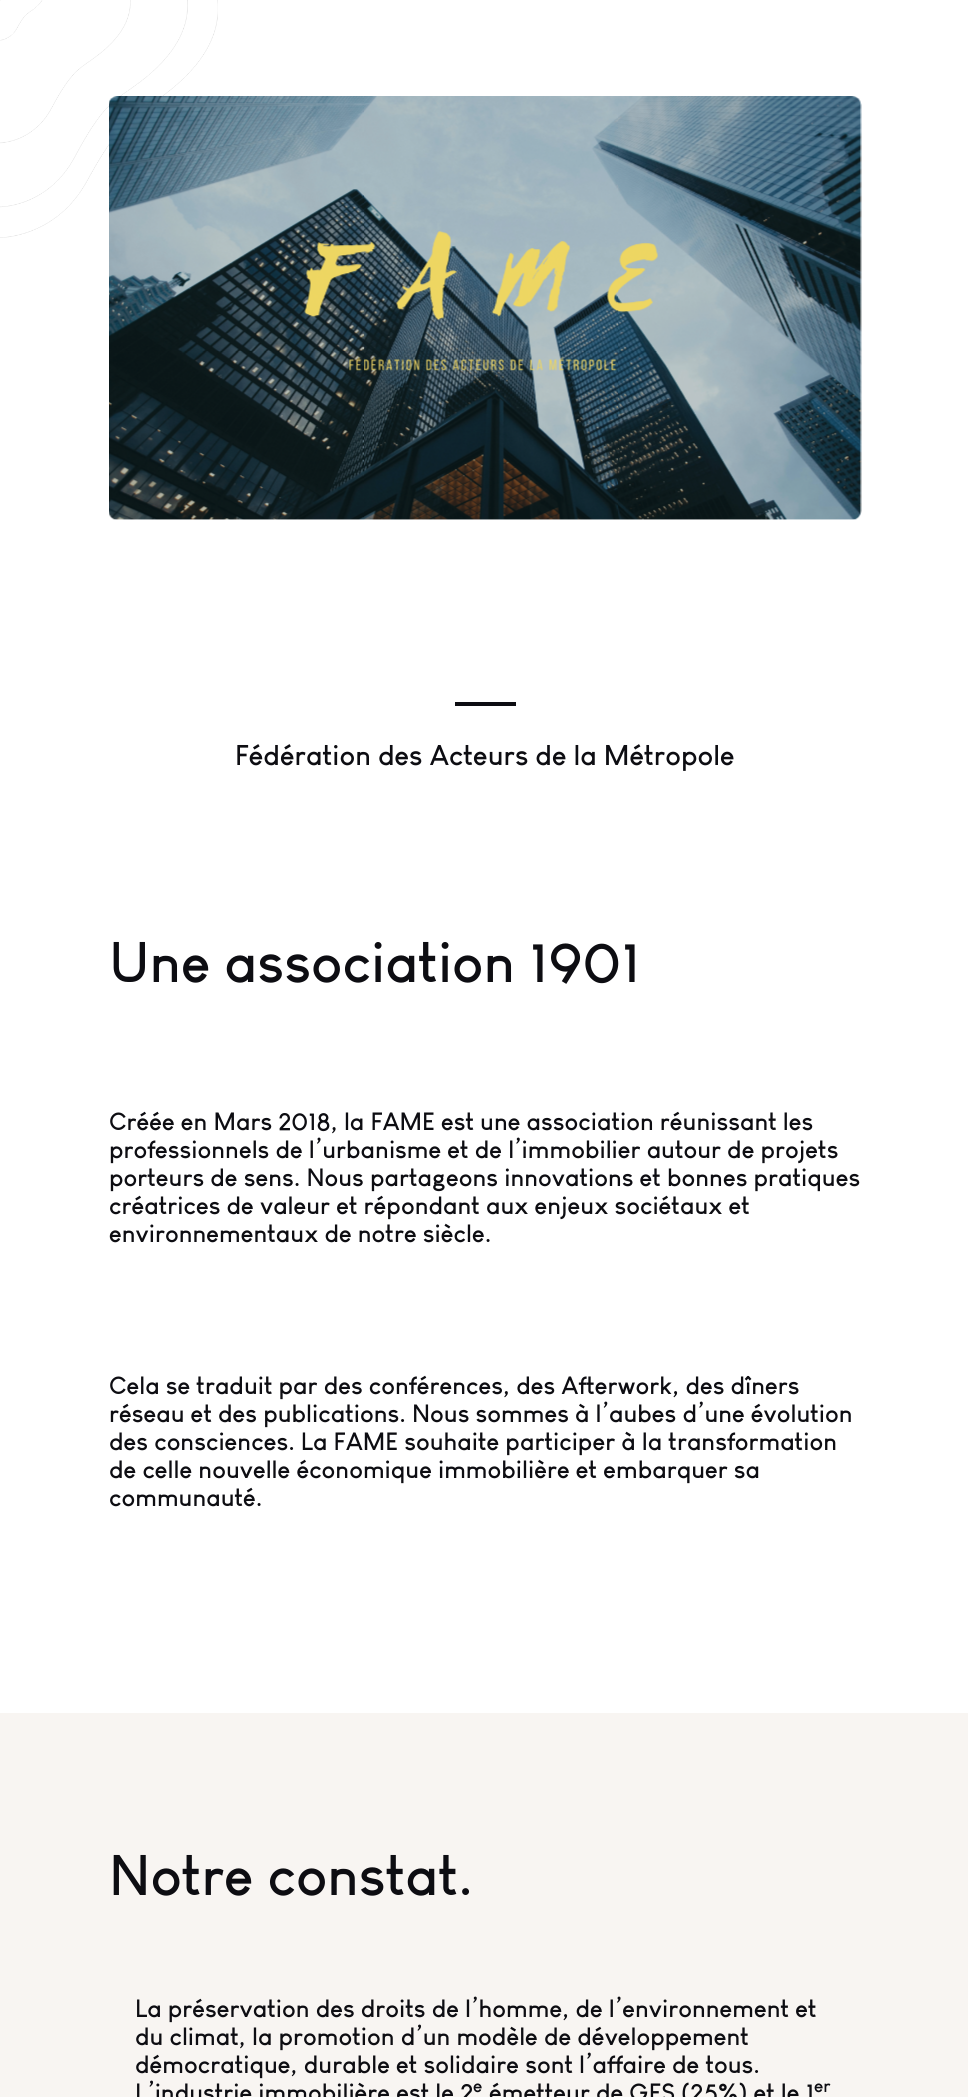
#include <cairo.h>
#include <math.h>
#include <stddef.h>


static void rgb(cairo_t *cr, int r, int g, int b)
{
	cairo_set_source_rgb(cr, r / 255.0, g / 255.0, b / 255.0);
}

static void face(cairo_t *cr, const char *family, double size, int italic, int bold)
{
	cairo_select_font_face(cr, family, italic ? CAIRO_FONT_SLANT_ITALIC : CAIRO_FONT_SLANT_NORMAL,
		bold ? CAIRO_FONT_WEIGHT_BOLD : CAIRO_FONT_WEIGHT_NORMAL);
	cairo_set_font_size(cr, size);
}

static void label(cairo_t *cr, double x, double y, const char *s)
{
	cairo_move_to(cr, x, y);
	cairo_show_text(cr, s);
}

static void rect(cairo_t *cr, double x, double y, double w, double h)
{
	cairo_rectangle(cr, x, y, w, h);
	cairo_fill(cr);
}

static void image(cairo_t *cr, const char *path, double x, double y, double w, double h)
{
	cairo_surface_t *image = cairo_image_surface_create_from_png(path);
	cairo_save(cr);
	cairo_set_source_surface(cr, image, x, y);
	cairo_rectangle(cr, x, y, w, h);
	cairo_fill(cr);
	cairo_restore(cr);
	cairo_surface_destroy(image);
}

static void draw(cairo_t *cr) {
	rgb(cr, 255, 255, 255);
	cairo_paint(cr);
	image(cr, "image0.png", 0, 0, 218, 238);
	image(cr, "image1.png", 109, 96, 753, 424);
	rgb(cr, 13, 13, 18);
	rect(cr, 455, 702, 61, 4);
	face(cr, "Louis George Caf", 28, 0, 1);
	label(cr, 235, 765, "Fédération des Acteurs de la Métropole");
	face(cr, "Louis George Caf", 56, 0, 1);
	label(cr, 109, 982, "Une association 1901");
	face(cr, "Louis George Caf", 24.5, 0, 1);
	label(cr, 109, 1130, "Créée en Mars 2018, la FAME est une association réunissant les");
	label(cr, 109, 1158, "professionnels de l’urbanisme et de l’immobilier autour de projets");
	label(cr, 109, 1186, "porteurs de sens. Nous partageons innovations et bonnes pratiques");
	label(cr, 109, 1214, "créatrices de valeur et répondant aux enjeux sociétaux et");
	label(cr, 109, 1242, "environnementaux de notre siècle.");
	label(cr, 109, 1394, "Cela se traduit par des conférences, des Afterwork, des dîners");
	label(cr, 109, 1422, "réseau et des publications. Nous sommes à l’aubes d’une évolution");
	label(cr, 109, 1450, "des consciences. La FAME souhaite participer à la transformation");
	label(cr, 109, 1478, "de celle nouvelle économique immobilière et embarquer sa");
	label(cr, 109, 1506, "communauté.");
	rgb(cr, 248, 245, 242);
	rect(cr, 0, 1713, 968, 384);
	face(cr, "Louis George Caf", 56, 0, 1);
	rgb(cr, 13, 13, 18);
	label(cr, 109, 1895, "Notre constat.");
	face(cr, "Louis George Caf", 24.5, 0, 1);
	label(cr, 135, 2017, "La préservation des droits de l’homme, de l’environnement et");
	label(cr, 135, 2045, "du climat, la promotion d’un modèle de développement");
	label(cr, 135, 2073, "démocratique, durable et solidaire sont l’affaire de tous.");
	label(cr, 135, 2101, "L’industrie immobilière est le 2");
	face(cr, "Louis George Caf", 18, 0, 1);
	label(cr, 473, 2092, "e");
	face(cr, "Louis George Caf", 24.5, 0, 1);
	label(cr, 489, 2101, "émetteur de GES (25%) et le 1");
	face(cr, "Louis George Caf", 18, 0, 1);
	label(cr, 814, 2092, "er");
}

int main(void) {
	cairo_surface_t *surface = cairo_image_surface_create(CAIRO_FORMAT_RGB24, 968, 2097);
	cairo_t *cr = cairo_create(surface);
	cairo_font_options_t *options = cairo_font_options_create();
	cairo_font_options_set_hint_metrics(options, CAIRO_HINT_METRICS_OFF);
	cairo_font_options_set_hint_style(options, CAIRO_HINT_STYLE_NONE);
	cairo_set_font_options(cr, options);
	cairo_set_miter_limit(cr, 4);
	draw(cr);
	cairo_surface_write_to_png(surface, "render.png");
	cairo_font_options_destroy(options);
	cairo_destroy(cr);
	cairo_surface_destroy(surface);
	return 0;
}
